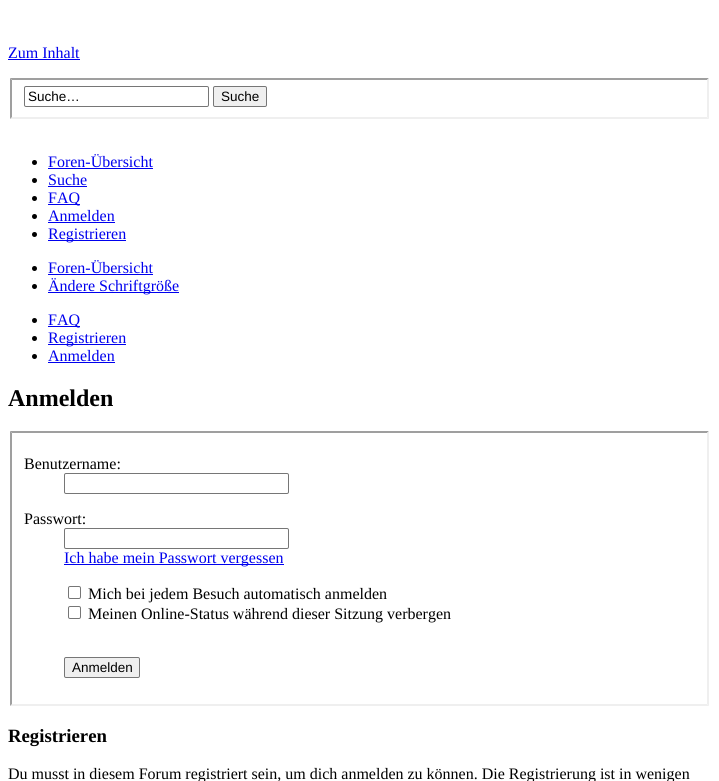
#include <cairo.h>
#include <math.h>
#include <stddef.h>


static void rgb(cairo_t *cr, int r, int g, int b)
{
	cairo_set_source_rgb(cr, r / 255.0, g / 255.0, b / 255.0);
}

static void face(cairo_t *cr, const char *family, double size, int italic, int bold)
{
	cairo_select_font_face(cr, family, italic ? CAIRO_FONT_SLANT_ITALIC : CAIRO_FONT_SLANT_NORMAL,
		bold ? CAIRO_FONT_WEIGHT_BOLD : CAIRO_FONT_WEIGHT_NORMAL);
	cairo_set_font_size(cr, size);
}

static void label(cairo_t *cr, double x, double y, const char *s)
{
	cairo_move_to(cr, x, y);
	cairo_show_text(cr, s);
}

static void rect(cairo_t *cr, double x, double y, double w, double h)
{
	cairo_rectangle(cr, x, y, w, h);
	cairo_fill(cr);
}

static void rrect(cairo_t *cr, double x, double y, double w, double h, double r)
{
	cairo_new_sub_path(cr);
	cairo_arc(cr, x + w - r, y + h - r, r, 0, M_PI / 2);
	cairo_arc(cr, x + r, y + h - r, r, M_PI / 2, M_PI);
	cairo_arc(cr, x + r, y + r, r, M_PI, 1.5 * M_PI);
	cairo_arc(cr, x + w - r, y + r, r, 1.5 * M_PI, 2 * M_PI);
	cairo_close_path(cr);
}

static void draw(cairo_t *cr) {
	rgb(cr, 255, 255, 255);
	cairo_paint(cr);
	face(cr, "Liberation Serif", 16, 0, 0);
	rgb(cr, 0, 0, 238);
	label(cr, 8, 58, "Zum Inhalt");
	rect(cr, 8, 59, 72, 1);
	rgb(cr, 159, 159, 159);
	cairo_new_path(cr);
	cairo_move_to(cr, 10, 78);
	cairo_line_to(cr, 709, 78);
	cairo_line_to(cr, 707, 80);
	cairo_line_to(cr, 12, 80);
	cairo_close_path(cr);
	cairo_fill(cr);
	rgb(cr, 239, 239, 239);
	cairo_new_path(cr);
	cairo_move_to(cr, 709, 78);
	cairo_line_to(cr, 709, 119);
	cairo_line_to(cr, 707, 117);
	cairo_line_to(cr, 707, 80);
	cairo_close_path(cr);
	cairo_fill(cr);
	cairo_new_path(cr);
	cairo_move_to(cr, 709, 119);
	cairo_line_to(cr, 10, 119);
	cairo_line_to(cr, 12, 117);
	cairo_line_to(cr, 707, 117);
	cairo_close_path(cr);
	cairo_fill(cr);
	rgb(cr, 159, 159, 159);
	cairo_new_path(cr);
	cairo_move_to(cr, 10, 119);
	cairo_line_to(cr, 10, 78);
	cairo_line_to(cr, 12, 80);
	cairo_line_to(cr, 12, 117);
	cairo_close_path(cr);
	cairo_fill(cr);
	rrect(cr, 24.5, 86.5, 184, 20, 1.5);
	rgb(cr, 118, 118, 118);
	cairo_set_line_width(cr, 1);
	cairo_stroke(cr);
	face(cr, "Liberation Sans", 13.5, 0, 0);
	rgb(cr, 0, 0, 0);
	label(cr, 28, 101, "Suche…");
	rgb(cr, 239, 239, 239);
	rrect(cr, 213.5, 86.5, 53, 20, 1.5);
	cairo_fill_preserve(cr);
	rgb(cr, 118, 118, 118);
	cairo_stroke(cr);
	rgb(cr, 0, 0, 0);
	label(cr, 221, 101, "Suche");
	cairo_new_path(cr);
	cairo_arc(cr, 34.5, 162.5, 2.5, 0, 2 * M_PI);
	cairo_fill(cr);
	face(cr, "Liberation Serif", 16, 0, 0);
	rgb(cr, 0, 0, 238);
	label(cr, 48, 167, "Foren-Übersicht");
	rect(cr, 48, 168, 105, 1);
	rgb(cr, 0, 0, 0);
	cairo_new_path(cr);
	cairo_arc(cr, 34.5, 180.5, 2.5, 0, 2 * M_PI);
	cairo_fill(cr);
	rgb(cr, 0, 0, 238);
	label(cr, 48, 185, "Suche");
	rect(cr, 48, 186, 39, 1);
	rgb(cr, 0, 0, 0);
	cairo_new_path(cr);
	cairo_arc(cr, 34.5, 198.5, 2.5, 0, 2 * M_PI);
	cairo_fill(cr);
	rgb(cr, 0, 0, 238);
	rect(cr, 48, 204, 32, 1);
	label(cr, 48, 203, "FAQ");
	rgb(cr, 0, 0, 0);
	cairo_new_path(cr);
	cairo_arc(cr, 34.5, 216.5, 2.5, 0, 2 * M_PI);
	cairo_fill(cr);
	rgb(cr, 0, 0, 238);
	label(cr, 48, 221, "Anmelden");
	rect(cr, 48, 222, 67, 1);
	rgb(cr, 0, 0, 0);
	cairo_new_path(cr);
	cairo_arc(cr, 34.5, 234.5, 2.5, 0, 2 * M_PI);
	cairo_fill(cr);
	rgb(cr, 0, 0, 238);
	rect(cr, 48, 240, 78, 1);
	label(cr, 48, 239, "Registrieren");
	rgb(cr, 0, 0, 0);
	cairo_new_path(cr);
	cairo_arc(cr, 34.5, 268.5, 2.5, 0, 2 * M_PI);
	cairo_fill(cr);
	rgb(cr, 0, 0, 238);
	label(cr, 48, 273, "Foren-Übersicht");
	rect(cr, 48, 274, 105, 1);
	rgb(cr, 0, 0, 0);
	cairo_new_path(cr);
	cairo_arc(cr, 34.5, 286.5, 2.5, 0, 2 * M_PI);
	cairo_fill(cr);
	rgb(cr, 0, 0, 238);
	rect(cr, 48, 292, 131, 1);
	label(cr, 48, 291, "Ändere Schriftgröße");
	rgb(cr, 0, 0, 0);
	cairo_new_path(cr);
	cairo_arc(cr, 34.5, 320.5, 2.5, 0, 2 * M_PI);
	cairo_fill(cr);
	rgb(cr, 0, 0, 238);
	rect(cr, 48, 326, 32, 1);
	label(cr, 48, 325, "FAQ");
	rgb(cr, 0, 0, 0);
	cairo_new_path(cr);
	cairo_arc(cr, 34.5, 338.5, 2.5, 0, 2 * M_PI);
	cairo_fill(cr);
	rgb(cr, 0, 0, 238);
	rect(cr, 48, 344, 78, 1);
	label(cr, 48, 343, "Registrieren");
	rgb(cr, 0, 0, 0);
	cairo_new_path(cr);
	cairo_arc(cr, 34.5, 356.5, 2.5, 0, 2 * M_PI);
	cairo_fill(cr);
	rgb(cr, 0, 0, 238);
	label(cr, 48, 361, "Anmelden");
	rect(cr, 48, 362, 67, 1);
	face(cr, "Liberation Serif", 24, 0, 1);
	rgb(cr, 0, 0, 0);
	label(cr, 8, 406, "Anmelden");
	rgb(cr, 159, 159, 159);
	cairo_new_path(cr);
	cairo_move_to(cr, 10, 431);
	cairo_line_to(cr, 709, 431);
	cairo_line_to(cr, 707, 433);
	cairo_line_to(cr, 12, 433);
	cairo_close_path(cr);
	cairo_fill(cr);
	rgb(cr, 239, 239, 239);
	cairo_new_path(cr);
	cairo_move_to(cr, 709, 431);
	cairo_line_to(cr, 709, 706);
	cairo_line_to(cr, 707, 704);
	cairo_line_to(cr, 707, 433);
	cairo_close_path(cr);
	cairo_fill(cr);
	cairo_new_path(cr);
	cairo_move_to(cr, 709, 706);
	cairo_line_to(cr, 10, 706);
	cairo_line_to(cr, 12, 704);
	cairo_line_to(cr, 707, 704);
	cairo_close_path(cr);
	cairo_fill(cr);
	rgb(cr, 159, 159, 159);
	cairo_new_path(cr);
	cairo_move_to(cr, 10, 706);
	cairo_line_to(cr, 10, 431);
	cairo_line_to(cr, 12, 433);
	cairo_line_to(cr, 12, 704);
	cairo_close_path(cr);
	cairo_fill(cr);
	face(cr, "Liberation Serif", 16, 0, 0);
	rgb(cr, 0, 0, 0);
	label(cr, 24, 469, "Benutzername:");
	rrect(cr, 64.5, 473.5, 224, 20, 1.5);
	rgb(cr, 118, 118, 118);
	cairo_stroke(cr);
	rgb(cr, 0, 0, 0);
	label(cr, 24, 524, "Passwort:");
	rrect(cr, 64.5, 528.5, 224, 20, 1.5);
	rgb(cr, 118, 118, 118);
	cairo_stroke(cr);
	rgb(cr, 0, 0, 238);
	rect(cr, 64, 564, 220, 1);
	label(cr, 64, 563, "Ich habe mein Passwort vergessen");
	rrect(cr, 68.5, 586.5, 12, 12, 1.5);
	rgb(cr, 118, 118, 118);
	cairo_stroke(cr);
	rgb(cr, 0, 0, 0);
	label(cr, 88, 599, "Mich bei jedem Besuch automatisch anmelden");
	rrect(cr, 68.5, 606.5, 12, 12, 1.5);
	rgb(cr, 118, 118, 118);
	cairo_stroke(cr);
	rgb(cr, 0, 0, 0);
	label(cr, 88, 619, "Meinen Online-Status während dieser Sitzung verbergen");
	rgb(cr, 239, 239, 239);
	rrect(cr, 64.5, 657.5, 75, 20, 1.5);
	cairo_fill_preserve(cr);
	rgb(cr, 118, 118, 118);
	cairo_stroke(cr);
	face(cr, "Liberation Sans", 13.5, 0, 0);
	rgb(cr, 0, 0, 0);
	label(cr, 72, 672, "Anmelden");
	face(cr, "Liberation Serif", 18.75, 0, 1);
	label(cr, 8, 742, "Registrieren");
	face(cr, "Liberation Serif", 16, 0, 0);
	label(cr, 8, 779, "Du musst in diesem Forum registriert sein, um dich anmelden zu können. Die Registrierung ist in wenigen");
}

int main(void) {
	cairo_surface_t *surface = cairo_image_surface_create(CAIRO_FORMAT_RGB24, 719, 781);
	cairo_t *cr = cairo_create(surface);
	cairo_font_options_t *options = cairo_font_options_create();
	cairo_font_options_set_hint_metrics(options, CAIRO_HINT_METRICS_OFF);
	cairo_font_options_set_hint_style(options, CAIRO_HINT_STYLE_NONE);
	cairo_set_font_options(cr, options);
	cairo_set_miter_limit(cr, 4);
	draw(cr);
	cairo_surface_write_to_png(surface, "render.png");
	cairo_font_options_destroy(options);
	cairo_destroy(cr);
	cairo_surface_destroy(surface);
	return 0;
}
